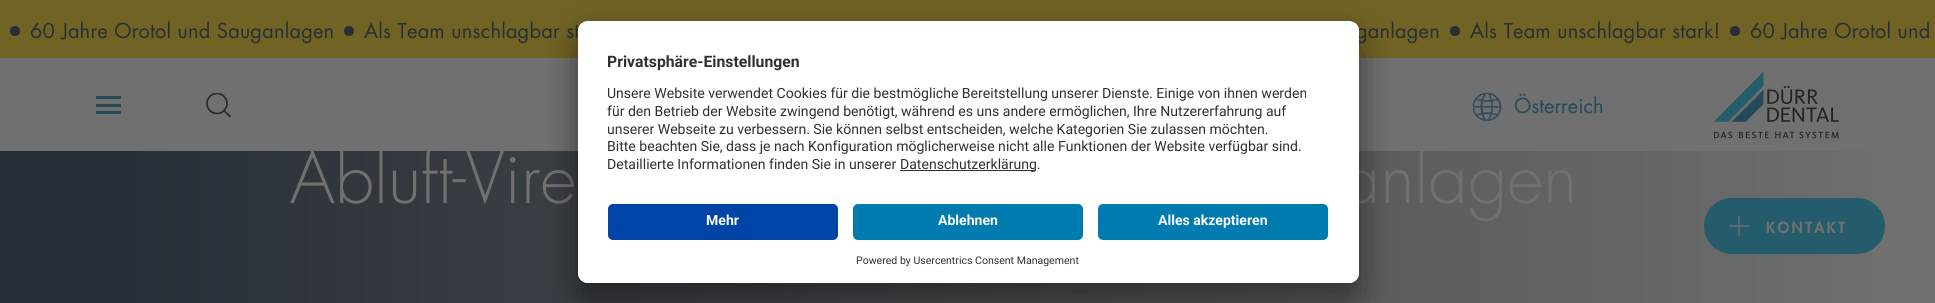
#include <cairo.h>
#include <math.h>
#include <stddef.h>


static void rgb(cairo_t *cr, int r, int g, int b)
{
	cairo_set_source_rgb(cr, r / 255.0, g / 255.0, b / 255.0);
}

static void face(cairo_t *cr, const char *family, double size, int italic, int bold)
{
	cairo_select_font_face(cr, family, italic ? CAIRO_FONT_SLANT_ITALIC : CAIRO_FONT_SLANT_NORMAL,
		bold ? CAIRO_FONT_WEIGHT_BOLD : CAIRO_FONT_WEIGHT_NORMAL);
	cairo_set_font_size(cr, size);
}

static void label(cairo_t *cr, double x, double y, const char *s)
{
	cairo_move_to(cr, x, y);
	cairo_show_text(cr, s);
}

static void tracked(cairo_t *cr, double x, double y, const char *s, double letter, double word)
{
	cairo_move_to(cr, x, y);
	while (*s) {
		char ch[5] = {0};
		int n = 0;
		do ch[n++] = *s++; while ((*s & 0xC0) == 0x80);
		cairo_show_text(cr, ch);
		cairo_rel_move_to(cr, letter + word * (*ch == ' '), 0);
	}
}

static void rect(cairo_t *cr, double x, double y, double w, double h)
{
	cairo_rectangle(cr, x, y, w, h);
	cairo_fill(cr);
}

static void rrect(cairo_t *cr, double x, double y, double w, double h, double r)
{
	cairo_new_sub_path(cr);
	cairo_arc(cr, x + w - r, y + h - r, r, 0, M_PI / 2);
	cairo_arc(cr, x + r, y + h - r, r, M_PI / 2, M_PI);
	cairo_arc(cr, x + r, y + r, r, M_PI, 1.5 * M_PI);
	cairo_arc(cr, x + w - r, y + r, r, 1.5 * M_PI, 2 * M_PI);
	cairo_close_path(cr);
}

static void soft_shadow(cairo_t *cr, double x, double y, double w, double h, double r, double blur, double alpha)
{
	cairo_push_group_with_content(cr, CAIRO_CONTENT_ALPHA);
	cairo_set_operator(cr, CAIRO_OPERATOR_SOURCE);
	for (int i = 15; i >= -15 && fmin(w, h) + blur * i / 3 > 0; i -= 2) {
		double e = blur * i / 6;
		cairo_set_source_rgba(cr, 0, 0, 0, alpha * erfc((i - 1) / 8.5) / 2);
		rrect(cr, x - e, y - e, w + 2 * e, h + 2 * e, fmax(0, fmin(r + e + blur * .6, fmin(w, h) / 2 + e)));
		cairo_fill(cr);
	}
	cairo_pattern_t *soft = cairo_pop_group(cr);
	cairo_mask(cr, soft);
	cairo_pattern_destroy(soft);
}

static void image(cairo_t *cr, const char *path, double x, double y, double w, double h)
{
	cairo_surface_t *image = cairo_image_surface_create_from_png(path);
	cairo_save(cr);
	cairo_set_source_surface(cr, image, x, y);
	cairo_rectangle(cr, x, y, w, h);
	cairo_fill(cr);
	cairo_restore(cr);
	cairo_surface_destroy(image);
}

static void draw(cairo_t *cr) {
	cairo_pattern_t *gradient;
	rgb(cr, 112, 112, 112);
	cairo_paint(cr);
	rgb(cr, 112, 99, 36);
	rect(cr, 0, 0, 1935, 58);
	rgb(cr, 39, 46, 53);
	cairo_arc(cr, 15, 31, 5, 0, 2 * M_PI);
	cairo_fill(cr);
	face(cr, "futura", 20, 0, 0);
	tracked(cr, 30, 38, "60 Jahre Orotol und Sauganlagen", 0.2, 0);
	cairo_new_path(cr);
	cairo_arc(cr, 349, 31, 5, 0, 2 * M_PI);
	cairo_fill(cr);
	tracked(cr, 364, 38, "Als Team unschlagbar st", 0.2, 0);
	tracked(cr, 1356, 38, "ganlagen", 0.2, 0);
	cairo_new_path(cr);
	cairo_arc(cr, 1455, 31, 5, 0, 2 * M_PI);
	cairo_fill(cr);
	tracked(cr, 1470, 38, "Als Team unschlagbar stark!", 0.2, 0);
	cairo_new_path(cr);
	cairo_arc(cr, 1735, 31, 5, 0, 2 * M_PI);
	cairo_fill(cr);
	tracked(cr, 1750, 38, "60 Jahre Orotol und", 0.2, 0);
	rgb(cr, 36, 73, 88);
	rect(cr, 96, 96, 25, 3);
	rect(cr, 96, 104, 25, 3);
	rect(cr, 96, 111, 25, 3);
	cairo_save(cr);
	cairo_rectangle(cr, 206, 93, 25, 25);
	cairo_clip(cr);
	cairo_arc(cr, 217, 103.5, 10, 0, 2 * M_PI);
	rgb(cr, 39, 46, 53);
	cairo_set_line_width(cr, 1.8);
	cairo_stroke(cr);
	cairo_restore(cr);
	cairo_new_path(cr);
	cairo_move_to(cr, 230.5, 117);
	cairo_line_to(cr, 224, 110.5);
	rgb(cr, 39, 46, 53);
	cairo_set_line_width(cr, 1.8);
	cairo_stroke(cr);
	image(cr, "image0.png", 1473, 93, 29, 29);
	rgb(cr, 36, 73, 88);
	label(cr, 1514, 113, "Österreich");
	image(cr, "image1.png", 1714, 71, 125, 68);
	gradient = cairo_pattern_create_linear(0, 256, 1935, 256);
	cairo_pattern_add_color_stop_rgba(gradient, 0.05, 0.153, 0.18, 0.208, 1);
	cairo_pattern_add_color_stop_rgba(gradient, 1, 0.439, 0.439, 0.439, 1);
	cairo_set_source(cr, gradient);
	cairo_pattern_destroy(gradient);
	rect(cr, 0, 151, 1872, 152);
	cairo_save(cr);
	cairo_rectangle(cr, 0, 151, 1935, 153);
	cairo_clip(cr);
	face(cr, "futura Light", 70, 0, 0);
	rgb(cr, 112, 112, 112);
	label(cr, 290, 203, "Abluft-Vire");
	label(cr, 1341, 203, "anlagen");
	cairo_restore(cr);
	rgb(cr, 36, 92, 107);
	rrect(cr, 1704, 198, 181, 56, 28);
	cairo_fill(cr);
	cairo_new_path(cr);
	cairo_move_to(cr, 1739, 216);
	cairo_line_to(cr, 1739, 236);
	cairo_move_to(cr, 1729, 226);
	cairo_line_to(cr, 1749, 226);
	rgb(cr, 112, 112, 112);
	cairo_set_line_width(cr, 1.4);
	cairo_set_line_join(cr, CAIRO_LINE_JOIN_ROUND);
	cairo_stroke(cr);
	face(cr, "futura Black", 15, 0, 0);
	tracked(cr, 1766, 233, "KONTAKT", 2.25, 0);
	rgb(cr, 0, 0, 0);
	soft_shadow(cr, 578, 46, 781, 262, 10, 17.5, 0.3);
	soft_shadow(cr, 578, 28, 781, 261, 10, 16, 0.22);
	rgb(cr, 255, 255, 255);
	rrect(cr, 578, 21, 781, 262, 10);
	cairo_fill(cr);
	cairo_save(cr);
	rrect(cr, 578, 21, 781, 262, 10);
	cairo_clip(cr);
	cairo_new_path(cr);
	cairo_move_to(cr, 588, 21);
	cairo_line_to(cr, 1349, 21);
	cairo_curve_to(cr, 1354.5, 21, 1359, 25.5, 1359, 31);
	cairo_line_to(cr, 1359, 194);
	cairo_line_to(cr, 578, 194);
	cairo_line_to(cr, 578, 31);
	cairo_curve_to(cr, 578, 25.5, 582.5, 21, 588, 21);
	cairo_close_path(cr);
	cairo_clip(cr);
	rect(cr, 578, 23, 781, 171);
	cairo_restore(cr);
	face(cr, "Roboto", 15.75, 0, 1);
	rgb(cr, 48, 48, 48);
	label(cr, 607, 67, "Privatsphäre-Einstellungen");
	cairo_save(cr);
	cairo_rectangle(cr, 608, 81, 721, 98);
	cairo_clip(cr);
	face(cr, "Roboto", 14.05, 0, 0);
	label(cr, 607, 98, "Unsere Website verwendet Cookies für die bestmögliche Bereitstellung unserer Dienste. Einige von ihnen werden");
	cairo_restore(cr);
	face(cr, "Roboto", 14.05, 0, 0);
	label(cr, 607, 116, "für den Betrieb der Website zwingend benötigt, während es uns andere ermöglichen, Ihre Nutzererfahrung auf");
	cairo_save(cr);
	cairo_rectangle(cr, 608, 81, 721, 98);
	cairo_clip(cr);
	label(cr, 607, 134, "unserer Webseite zu verbessern. Sie können selbst entscheiden, welche Kategorien Sie zulassen möchten.");
	cairo_restore(cr);
	label(cr, 607, 151, "Bitte beachten Sie, dass je nach Konfiguration möglicherweise nicht alle Funktionen der Website verfügbar sind.");
	label(cr, 607, 169, "Detaillierte Informationen finden Sie in unserer");
	rect(cr, 900, 170, 136, 1);
	label(cr, 900, 169, "Datenschutzerklärung.");
	rgb(cr, 255, 255, 255);
	cairo_new_path(cr);
	cairo_move_to(cr, 578, 194);
	cairo_line_to(cr, 1359, 194);
	cairo_line_to(cr, 1359, 273);
	cairo_curve_to(cr, 1359, 278.5, 1354.5, 283, 1349, 283);
	cairo_line_to(cr, 588, 283);
	cairo_curve_to(cr, 582.5, 283, 578, 278.5, 578, 273);
	cairo_close_path(cr);
	cairo_fill(cr);
	rgb(cr, 0, 69, 165);
	rrect(cr, 608, 204, 230, 36, 5);
	cairo_fill(cr);
	face(cr, "Roboto", 14.05, 0, 1);
	rgb(cr, 250, 250, 250);
	label(cr, 706, 225, "Mehr");
	rgb(cr, 0, 123, 175);
	rrect(cr, 853, 204, 230, 36, 5);
	cairo_fill(cr);
	rgb(cr, 250, 250, 250);
	label(cr, 938, 225, "Ablehnen");
	rgb(cr, 0, 123, 175);
	rrect(cr, 1098, 204, 230, 36, 5);
	cairo_fill(cr);
	rgb(cr, 250, 250, 250);
	label(cr, 1158, 225, "Alles akzeptieren");
	face(cr, "Roboto", 10.55, 0, 0);
	rgb(cr, 48, 48, 48);
	label(cr, 856, 264, "Powered by Usercentrics Consent Management");
}

int main(void) {
	cairo_surface_t *surface = cairo_image_surface_create(CAIRO_FORMAT_RGB24, 1935, 303);
	cairo_t *cr = cairo_create(surface);
	cairo_font_options_t *options = cairo_font_options_create();
	cairo_font_options_set_hint_metrics(options, CAIRO_HINT_METRICS_OFF);
	cairo_font_options_set_hint_style(options, CAIRO_HINT_STYLE_NONE);
	cairo_set_font_options(cr, options);
	cairo_set_miter_limit(cr, 4);
	draw(cr);
	cairo_surface_write_to_png(surface, "render.png");
	cairo_font_options_destroy(options);
	cairo_destroy(cr);
	cairo_surface_destroy(surface);
	return 0;
}
